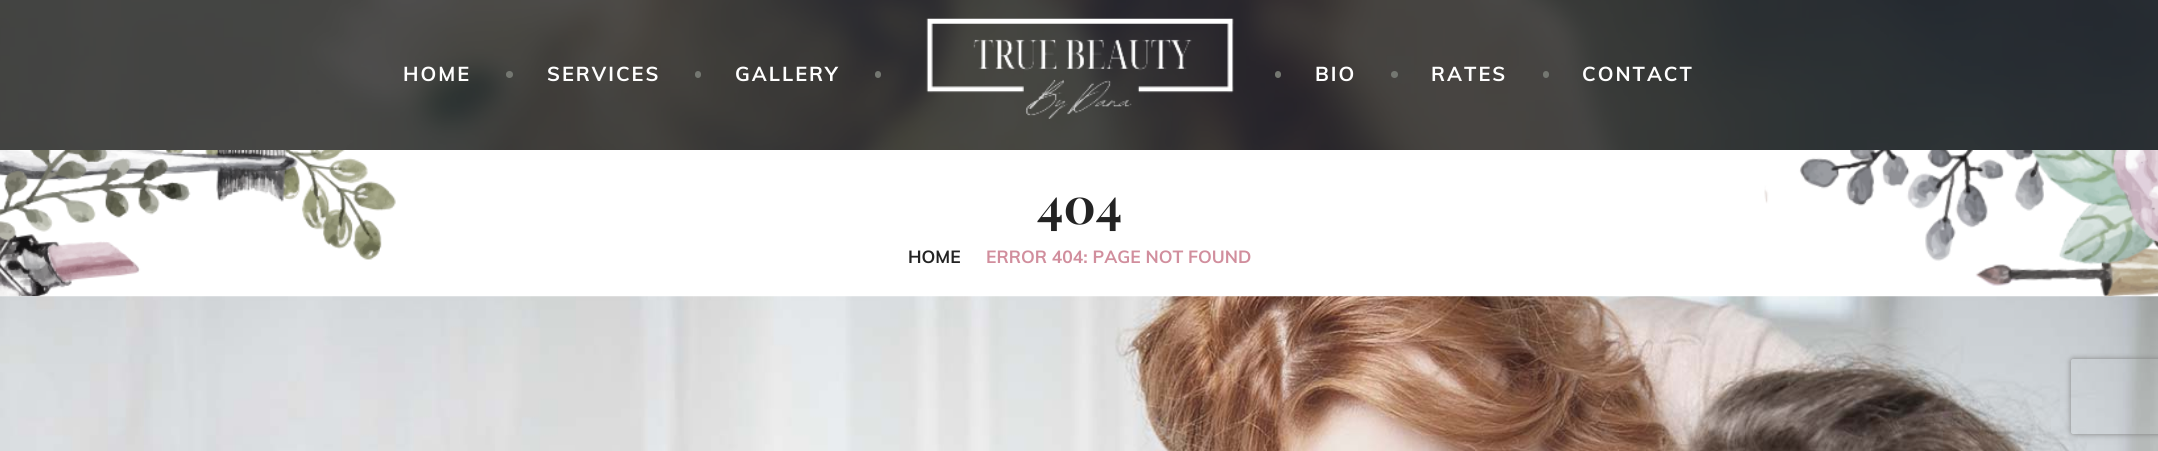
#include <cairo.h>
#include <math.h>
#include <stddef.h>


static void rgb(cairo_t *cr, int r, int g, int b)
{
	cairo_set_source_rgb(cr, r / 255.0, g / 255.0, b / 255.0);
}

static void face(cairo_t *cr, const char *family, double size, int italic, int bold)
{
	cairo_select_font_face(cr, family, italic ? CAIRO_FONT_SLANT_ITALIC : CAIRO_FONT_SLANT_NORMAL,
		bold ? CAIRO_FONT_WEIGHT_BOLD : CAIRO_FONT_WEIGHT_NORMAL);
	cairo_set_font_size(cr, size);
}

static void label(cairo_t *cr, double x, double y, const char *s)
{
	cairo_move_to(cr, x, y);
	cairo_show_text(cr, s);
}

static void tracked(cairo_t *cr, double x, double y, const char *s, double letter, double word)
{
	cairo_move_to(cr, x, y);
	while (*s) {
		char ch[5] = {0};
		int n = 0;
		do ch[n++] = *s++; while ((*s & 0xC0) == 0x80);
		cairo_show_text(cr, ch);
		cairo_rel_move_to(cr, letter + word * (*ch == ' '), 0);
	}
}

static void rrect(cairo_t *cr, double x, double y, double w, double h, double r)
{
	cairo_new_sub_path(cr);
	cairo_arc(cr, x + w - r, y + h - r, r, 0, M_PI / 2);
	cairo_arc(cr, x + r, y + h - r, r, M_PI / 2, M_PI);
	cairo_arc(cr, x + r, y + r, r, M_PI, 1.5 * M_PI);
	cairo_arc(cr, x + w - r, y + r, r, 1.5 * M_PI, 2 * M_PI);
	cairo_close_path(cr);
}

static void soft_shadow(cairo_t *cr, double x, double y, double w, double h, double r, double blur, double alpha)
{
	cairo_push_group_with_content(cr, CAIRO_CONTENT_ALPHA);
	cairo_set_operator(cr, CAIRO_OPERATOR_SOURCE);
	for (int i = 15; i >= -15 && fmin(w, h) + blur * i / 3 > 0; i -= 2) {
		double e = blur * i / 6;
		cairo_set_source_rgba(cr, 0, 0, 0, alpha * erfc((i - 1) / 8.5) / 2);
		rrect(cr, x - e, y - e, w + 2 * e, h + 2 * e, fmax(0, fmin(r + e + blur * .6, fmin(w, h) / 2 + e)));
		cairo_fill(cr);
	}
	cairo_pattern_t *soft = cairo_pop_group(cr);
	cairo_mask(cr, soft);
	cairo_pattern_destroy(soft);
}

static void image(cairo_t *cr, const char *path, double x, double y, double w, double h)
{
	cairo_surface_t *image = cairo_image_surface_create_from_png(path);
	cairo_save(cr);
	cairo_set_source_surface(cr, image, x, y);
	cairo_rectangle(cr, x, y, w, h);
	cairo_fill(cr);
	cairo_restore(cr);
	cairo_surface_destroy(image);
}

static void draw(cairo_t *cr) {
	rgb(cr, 255, 255, 255);
	cairo_paint(cr);
	image(cr, "image0.png", 0, 0, 2158, 150);
	image(cr, "image1.png", 926, 18, 308, 101);
	face(cr, "Muli", 20, 0, 1);
	rgb(cr, 255, 255, 255);
	tracked(cr, 403, 81, "HOME", 2, 0);
	rgb(cr, 116, 119, 113);
	cairo_new_path(cr);
	cairo_arc(cr, 509.5, 74.5, 3.5, 0, 2 * M_PI);
	cairo_fill(cr);
	rgb(cr, 255, 255, 255);
	tracked(cr, 547, 81, "SERVICES", 2, 0);
	rgb(cr, 116, 119, 113);
	rrect(cr, 695, 71, 6, 7, 3);
	cairo_fill(cr);
	rgb(cr, 255, 255, 255);
	tracked(cr, 735, 81, "GALLERY", 2, 0);
	rgb(cr, 116, 119, 113);
	rrect(cr, 875, 71, 6, 7, 3);
	cairo_fill(cr);
	rrect(cr, 1275, 71, 6, 7, 3);
	cairo_fill(cr);
	rgb(cr, 255, 255, 255);
	tracked(cr, 1315, 81, "BIO", 2, 0);
	rgb(cr, 116, 119, 113);
	cairo_new_path(cr);
	cairo_arc(cr, 1394.5, 74.5, 3.5, 0, 2 * M_PI);
	cairo_fill(cr);
	rgb(cr, 255, 255, 255);
	tracked(cr, 1431, 81, "RATES", 2, 0);
	rgb(cr, 116, 119, 113);
	rrect(cr, 1543, 71, 6, 7, 3);
	cairo_fill(cr);
	rgb(cr, 255, 255, 255);
	tracked(cr, 1582, 81, "CONTACT", 2, 0);
	image(cr, "image2.png", 0, 150, 2158, 147);
	face(cr, "Playfair Display", 50, 0, 1);
	rgb(cr, 35, 35, 35);
	label(cr, 1037, 224, "404");
	face(cr, "Muli", 17.5, 0, 1);
	label(cr, 908, 263, "HOME");
	rgb(cr, 209, 142, 157);
	label(cr, 986, 263, "ERROR 404: PAGE NOT FOUND");
	image(cr, "image3.png", 0, 296, 2158, 155);
	cairo_save(cr);
	cairo_set_fill_rule(cr, CAIRO_FILL_RULE_EVEN_ODD);
	cairo_new_path(cr);
	cairo_move_to(cr, 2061, 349);
	cairo_line_to(cr, 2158, 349);
	cairo_line_to(cr, 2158, 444);
	cairo_line_to(cr, 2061, 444);
	cairo_close_path(cr);
	cairo_move_to(cr, 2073.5, 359);
	cairo_line_to(cr, 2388.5, 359);
	cairo_curve_to(cr, 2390, 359, 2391, 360, 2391, 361.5);
	cairo_line_to(cr, 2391, 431.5);
	cairo_curve_to(cr, 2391, 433, 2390, 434, 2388.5, 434);
	cairo_line_to(cr, 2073.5, 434);
	cairo_curve_to(cr, 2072, 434, 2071, 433, 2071, 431.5);
	cairo_line_to(cr, 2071, 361.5);
	cairo_curve_to(cr, 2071, 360, 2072, 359, 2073.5, 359);
	cairo_close_path(cr);
	cairo_clip(cr);
	rgb(cr, 128, 128, 128);
	soft_shadow(cr, 2071, 359, 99, 75, 2.5, 3, 1);
	cairo_restore(cr);
}

int main(void) {
	cairo_surface_t *surface = cairo_image_surface_create(CAIRO_FORMAT_RGB24, 2158, 451);
	cairo_t *cr = cairo_create(surface);
	cairo_font_options_t *options = cairo_font_options_create();
	cairo_font_options_set_hint_metrics(options, CAIRO_HINT_METRICS_OFF);
	cairo_font_options_set_hint_style(options, CAIRO_HINT_STYLE_NONE);
	cairo_set_font_options(cr, options);
	cairo_set_miter_limit(cr, 4);
	draw(cr);
	cairo_surface_write_to_png(surface, "render.png");
	cairo_font_options_destroy(options);
	cairo_destroy(cr);
	cairo_surface_destroy(surface);
	return 0;
}
